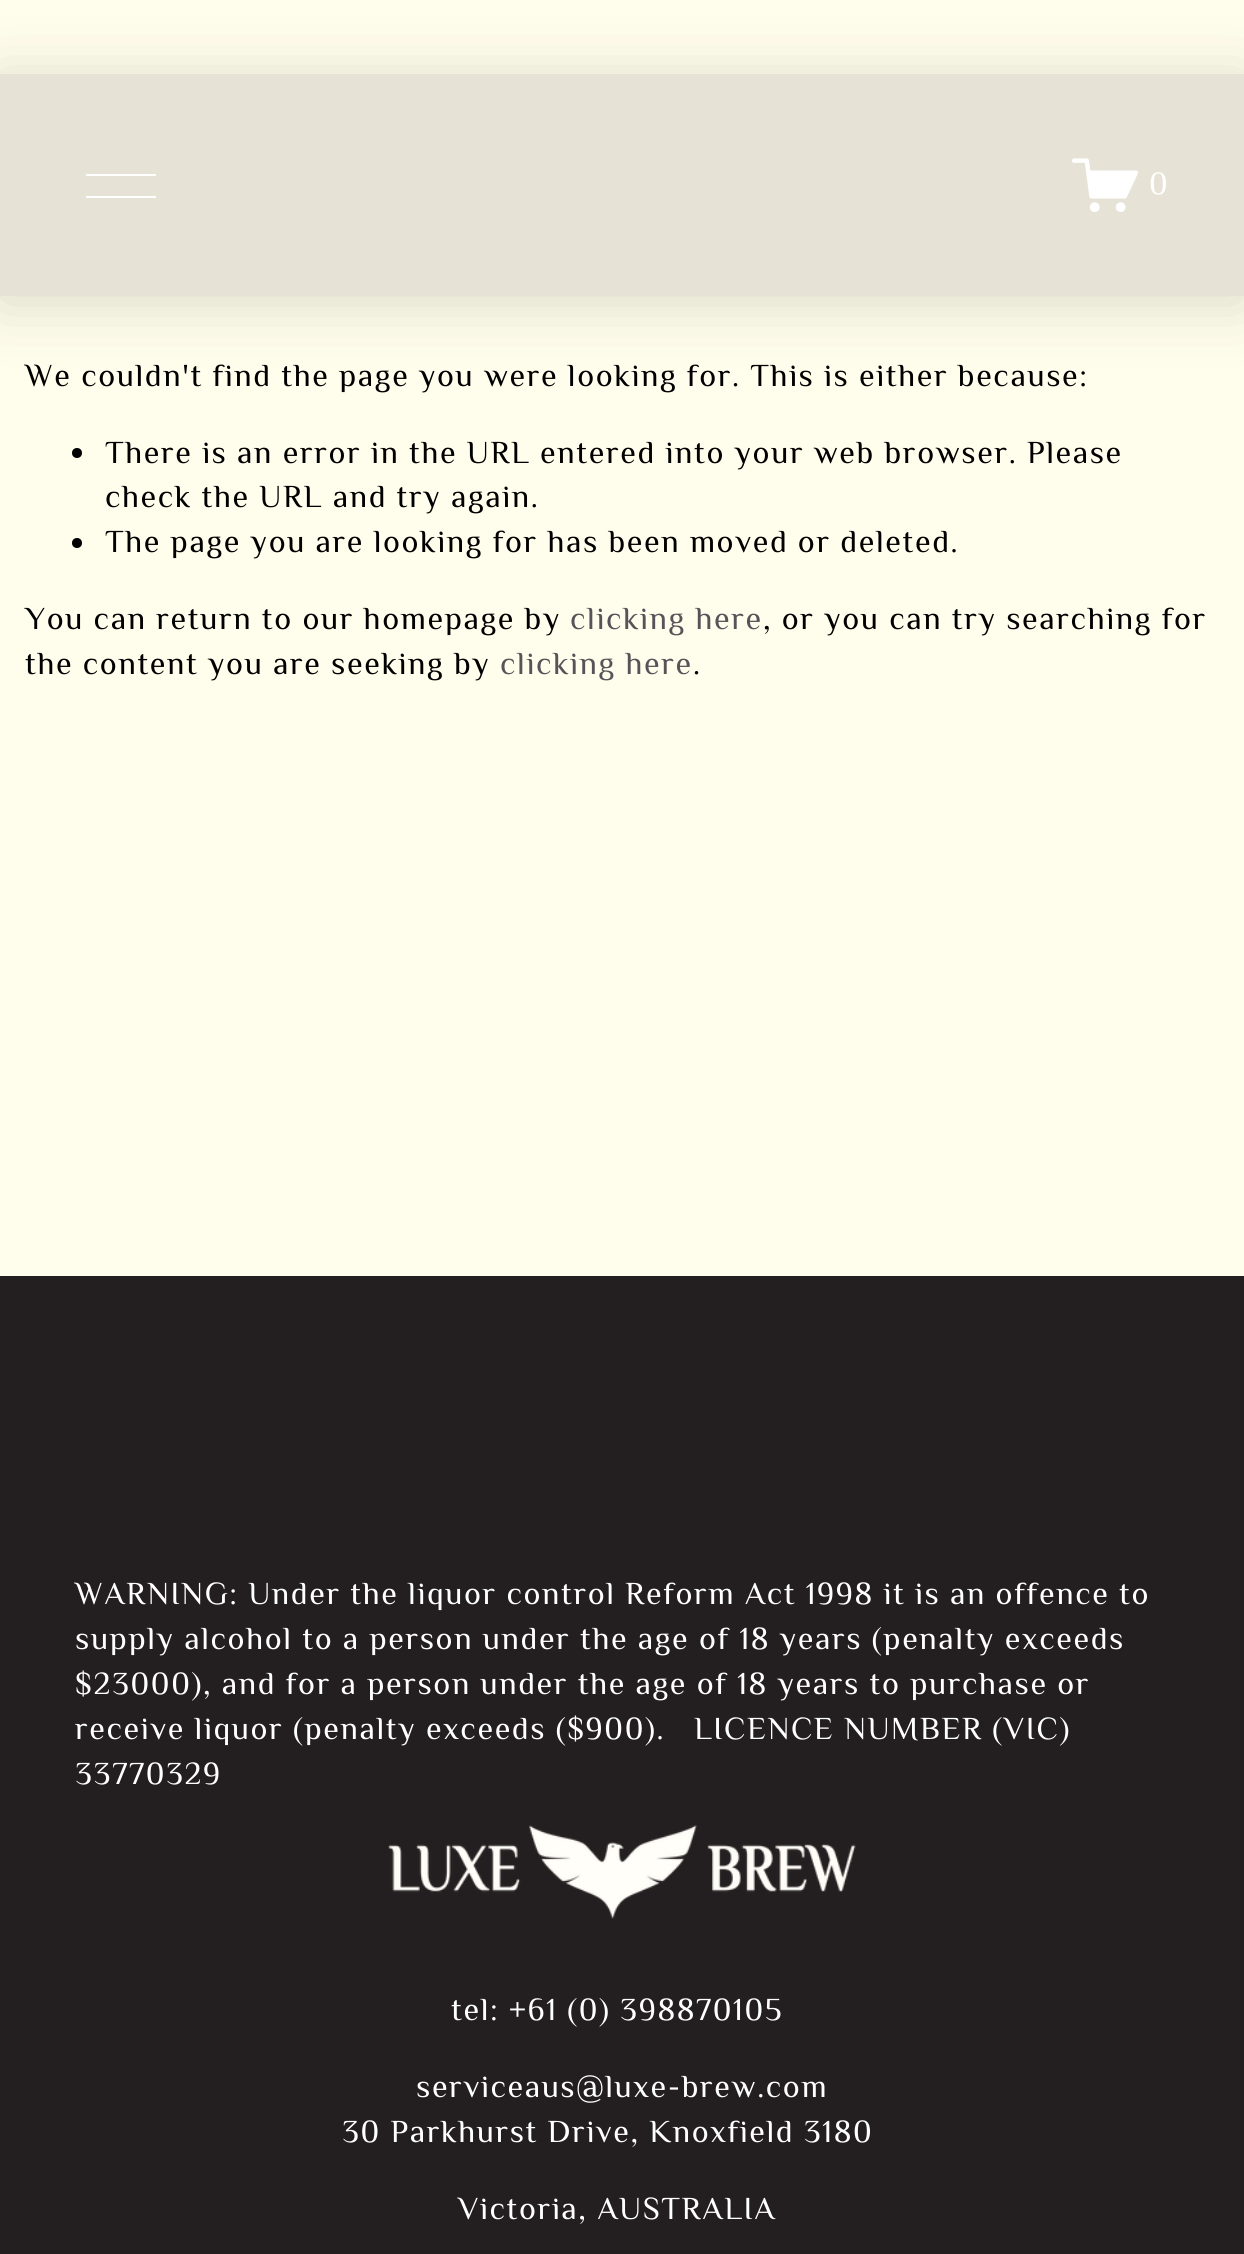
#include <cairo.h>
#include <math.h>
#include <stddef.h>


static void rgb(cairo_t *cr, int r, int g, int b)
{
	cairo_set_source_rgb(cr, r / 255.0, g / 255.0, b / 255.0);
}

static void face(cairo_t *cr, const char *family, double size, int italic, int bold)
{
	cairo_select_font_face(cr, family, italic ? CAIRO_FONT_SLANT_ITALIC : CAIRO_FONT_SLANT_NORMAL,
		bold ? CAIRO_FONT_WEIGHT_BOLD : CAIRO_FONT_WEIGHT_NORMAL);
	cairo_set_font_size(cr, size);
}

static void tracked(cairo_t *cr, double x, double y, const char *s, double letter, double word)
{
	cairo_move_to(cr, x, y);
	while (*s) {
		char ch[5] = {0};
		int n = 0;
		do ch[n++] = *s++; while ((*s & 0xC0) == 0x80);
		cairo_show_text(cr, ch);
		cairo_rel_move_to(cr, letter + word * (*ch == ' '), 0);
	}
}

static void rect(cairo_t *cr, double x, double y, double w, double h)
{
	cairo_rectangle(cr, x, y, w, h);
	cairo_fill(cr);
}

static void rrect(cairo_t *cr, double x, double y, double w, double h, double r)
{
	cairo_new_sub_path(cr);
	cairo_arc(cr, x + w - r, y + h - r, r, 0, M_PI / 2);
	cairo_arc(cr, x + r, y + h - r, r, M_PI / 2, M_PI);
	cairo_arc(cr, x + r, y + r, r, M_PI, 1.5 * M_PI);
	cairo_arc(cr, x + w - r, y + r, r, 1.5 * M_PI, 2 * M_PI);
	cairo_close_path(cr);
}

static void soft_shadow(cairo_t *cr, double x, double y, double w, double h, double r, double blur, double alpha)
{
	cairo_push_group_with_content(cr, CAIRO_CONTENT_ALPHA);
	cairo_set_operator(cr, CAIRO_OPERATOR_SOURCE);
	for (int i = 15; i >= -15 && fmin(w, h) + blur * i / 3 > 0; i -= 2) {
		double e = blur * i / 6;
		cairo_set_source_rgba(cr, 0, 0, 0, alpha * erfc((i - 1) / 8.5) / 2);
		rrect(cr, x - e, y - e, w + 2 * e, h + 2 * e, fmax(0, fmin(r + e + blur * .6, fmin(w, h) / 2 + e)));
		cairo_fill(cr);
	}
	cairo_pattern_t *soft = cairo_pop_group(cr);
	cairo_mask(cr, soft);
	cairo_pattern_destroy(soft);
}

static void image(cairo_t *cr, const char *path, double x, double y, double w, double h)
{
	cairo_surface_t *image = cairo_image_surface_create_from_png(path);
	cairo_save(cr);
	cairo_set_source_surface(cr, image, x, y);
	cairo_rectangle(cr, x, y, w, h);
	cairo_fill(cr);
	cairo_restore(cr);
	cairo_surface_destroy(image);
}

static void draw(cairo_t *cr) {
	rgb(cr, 255, 253, 235);
	cairo_paint(cr);
	rgb(cr, 217, 215, 200);
	soft_shadow(cr, 0, 80, 1244, 222, 0, 30, 1);
	rgb(cr, 230, 227, 214);
	rect(cr, 0, 74, 1244, 222);
	rgb(cr, 255, 255, 255);
	rect(cr, 86, 174, 70, 2);
	rect(cr, 86, 196, 70, 2);
	image(cr, "image0.png", 1072, 158, 66, 54);
	face(cr, "Philosopher", 32, 0, 0);
	tracked(cr, 1149, 194, "0", 1.6, 0);
	rgb(cr, 0, 0, 0);
	tracked(cr, 25, 386, "We couldn't find the page you were looking for. This is either because:", 1.6, 0);
	cairo_new_path(cr);
	cairo_arc(cr, 77, 453, 5, 0, 2 * M_PI);
	cairo_fill(cr);
	tracked(cr, 105, 463, "There is an error in the URL entered into your web browser. Please", 1.6, 0);
	tracked(cr, 105, 507, "check the URL and try again.", 1.6, 0);
	cairo_new_path(cr);
	cairo_arc(cr, 77, 543, 5, 0, 2 * M_PI);
	cairo_fill(cr);
	tracked(cr, 105, 552, "The page you are looking for has been moved or deleted.", 1.6, 0);
	tracked(cr, 25, 629, "You can return to our homepage by", 1.6, 0);
	rgb(cr, 86, 84, 88);
	tracked(cr, 570, 629, "clicking here", 1.6, 0);
	rgb(cr, 0, 0, 0);
	tracked(cr, 763, 629, ", or you can try searching for", 1.6, 0);
	tracked(cr, 25, 674, "the content you are seeking by", 1.6, 0);
	rgb(cr, 86, 84, 88);
	tracked(cr, 500, 674, "clicking here", 1.6, 0);
	rgb(cr, 0, 0, 0);
	tracked(cr, 693, 674, ".", 1.6, 0);
	rgb(cr, 35, 31, 32);
	rect(cr, 0, 1276, 1244, 978);
	rgb(cr, 255, 255, 255);
	tracked(cr, 75, 1604, "WARNING: Under the liquor control Reform Act 1998 it is an offence to", 1.6, 0);
	tracked(cr, 75, 1649, "supply alcohol to a person under the age of 18 years (penalty exceeds", 1.6, 0);
	tracked(cr, 75, 1694, "$23000), and for a person under the age of 18 years to purchase or", 1.6, 0);
	tracked(cr, 75, 1739, "receive liquor (penalty exceeds ($900).   LICENCE NUMBER (VIC)", 1.6, 0);
	tracked(cr, 75, 1784, "33770329", 1.6, 0);
	image(cr, "image1.png", 388, 1825, 468, 94);
	tracked(cr, 451, 2020, "tel: +61 (0) 398870105", 1.6, 0);
	tracked(cr, 416, 2097, "serviceaus@luxe-brew.com", 1.6, 0);
	tracked(cr, 342, 2142, "30 Parkhurst Drive, Knoxfield 3180", 1.6, 0);
	tracked(cr, 458, 2219, "Victoria, AUSTRALIA", 1.6, 0);
}

int main(void) {
	cairo_surface_t *surface = cairo_image_surface_create(CAIRO_FORMAT_RGB24, 1244, 2254);
	cairo_t *cr = cairo_create(surface);
	cairo_font_options_t *options = cairo_font_options_create();
	cairo_font_options_set_hint_metrics(options, CAIRO_HINT_METRICS_OFF);
	cairo_font_options_set_hint_style(options, CAIRO_HINT_STYLE_NONE);
	cairo_set_font_options(cr, options);
	cairo_set_miter_limit(cr, 4);
	draw(cr);
	cairo_surface_write_to_png(surface, "render.png");
	cairo_font_options_destroy(options);
	cairo_destroy(cr);
	cairo_surface_destroy(surface);
	return 0;
}
